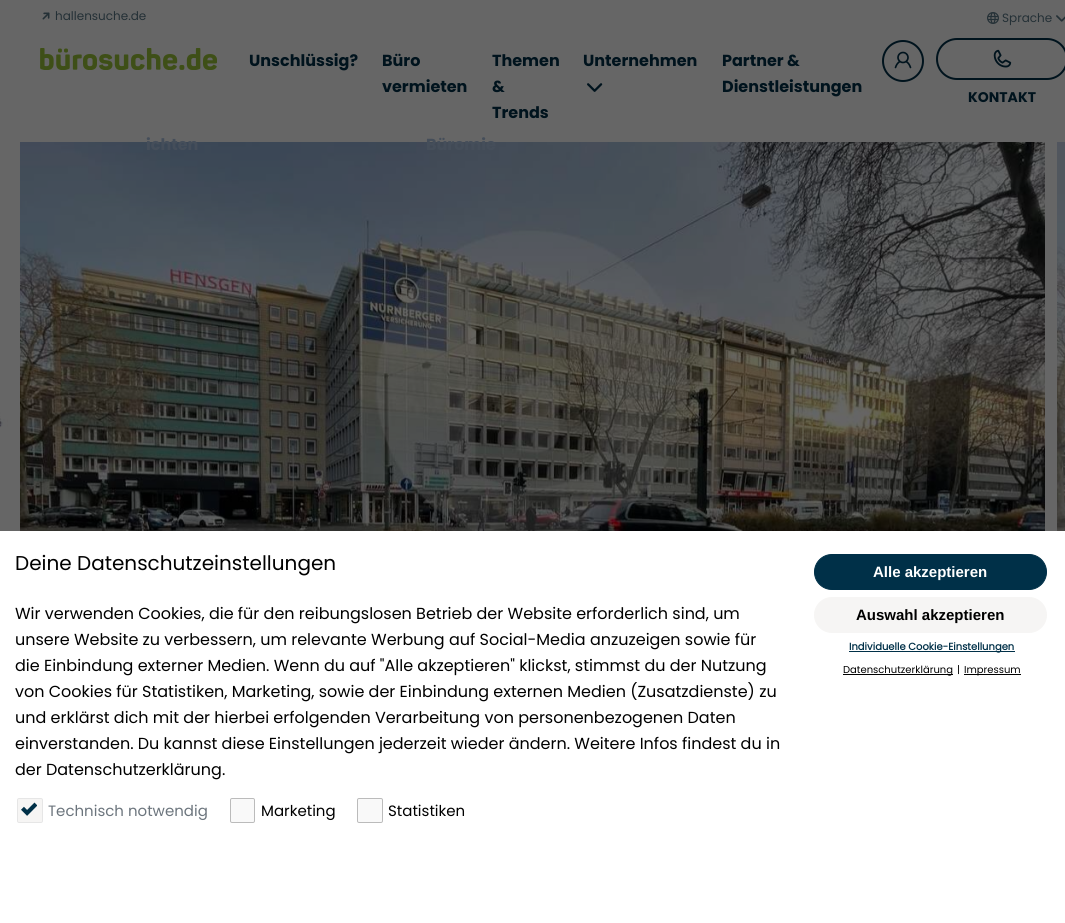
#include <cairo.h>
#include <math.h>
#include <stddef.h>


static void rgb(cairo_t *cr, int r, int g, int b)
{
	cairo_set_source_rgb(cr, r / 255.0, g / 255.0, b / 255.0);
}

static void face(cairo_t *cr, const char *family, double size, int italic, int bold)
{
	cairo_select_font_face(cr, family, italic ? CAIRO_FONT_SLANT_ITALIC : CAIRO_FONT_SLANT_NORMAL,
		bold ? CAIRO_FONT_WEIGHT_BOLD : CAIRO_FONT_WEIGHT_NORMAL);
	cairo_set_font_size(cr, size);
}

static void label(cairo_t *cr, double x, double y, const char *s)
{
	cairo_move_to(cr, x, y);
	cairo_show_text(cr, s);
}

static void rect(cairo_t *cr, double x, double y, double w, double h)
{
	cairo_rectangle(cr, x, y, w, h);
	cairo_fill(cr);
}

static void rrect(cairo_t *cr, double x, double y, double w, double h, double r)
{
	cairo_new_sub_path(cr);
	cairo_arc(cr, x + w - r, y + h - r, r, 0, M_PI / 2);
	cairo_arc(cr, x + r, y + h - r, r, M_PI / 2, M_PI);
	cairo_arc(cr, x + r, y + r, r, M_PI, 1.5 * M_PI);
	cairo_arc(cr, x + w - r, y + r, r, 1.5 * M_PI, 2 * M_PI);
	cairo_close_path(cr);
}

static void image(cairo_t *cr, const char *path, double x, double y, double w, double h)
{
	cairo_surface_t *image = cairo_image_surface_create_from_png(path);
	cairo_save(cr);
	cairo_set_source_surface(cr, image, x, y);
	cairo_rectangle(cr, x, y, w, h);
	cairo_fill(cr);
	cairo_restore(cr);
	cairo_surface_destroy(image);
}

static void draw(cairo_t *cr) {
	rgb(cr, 102, 102, 102);
	cairo_paint(cr);
	image(cr, "image0.png", 42, 12, 8, 8);
	face(cr, "Poppins", 12, 0, 0);
	rgb(cr, 36, 48, 54);
	label(cr, 55, 20, "hallensuche.de");
	image(cr, "image1.png", 987, 12, 12, 12);
	label(cr, 1002, 22, "Sprache");
	image(cr, "image2.png", 1056, 15, 9, 7);
	image(cr, "image3.png", 40, 48, 177, 22);
	face(cr, "Poppins", 16, 0, 1);
	rgb(cr, 0, 19, 29);
	label(cr, 249, 66, "Unschlüssig?");
	label(cr, 382, 66, "Büro");
	label(cr, 382, 92, "vermieten");
	label(cr, 583, 66, "Unternehmen");
	image(cr, "image4.png", 587, 83, 16, 9);
	image(cr, "image8.png", 20, 142, 1025, 389);
	rgb(cr, 69, 78, 90);
	label(cr, 146, 150, "ichten");
	label(cr, 426, 150, "Büromie");
	rgb(cr, 0, 19, 29);
	label(cr, 492, 66, "Themen");
	label(cr, 492, 92, "&");
	label(cr, 492, 118, "Trends");
	label(cr, 722, 66, "Partner &");
	label(cr, 722, 92, "Dienstleistungen");
	cairo_new_path(cr);
	cairo_arc(cr, 903, 61, 20, 0, 2 * M_PI);
	cairo_stroke(cr);
	image(cr, "image5.png", 894, 51, 18, 18);
	rrect(cr, 937, 39, 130, 40, 20);
	cairo_stroke(cr);
	image(cr, "image6.png", 993, 49, 19, 19);
	face(cr, "Poppins", 14, 0, 1);
	label(cr, 968, 102, "KONTAKT");
	image(cr, "image7.png", 0, 142, 8, 286);
	image(cr, "image9.png", 1057, 142, 8, 389);
	rgb(cr, 255, 255, 255);
	rect(cr, 0, 531, 1065, 392);
	face(cr, "Poppins", 20, 0, 0);
	rgb(cr, 0, 0, 0);
	label(cr, 15, 570, "Deine Datenschutzeinstellungen");
	face(cr, "Poppins", 16, 0, 0);
	label(cr, 15, 619, "Wir verwenden Cookies, die für den reibungslosen Betrieb der Website erforderlich sind, um");
	label(cr, 15, 645, "unsere Website zu verbessern, um relevante Werbung auf Social-Media anzuzeigen sowie für");
	label(cr, 15, 671, "die Einbindung externer Medien. Wenn du auf \"Alle akzeptieren\" klickst, stimmst du der Nutzung");
	label(cr, 15, 697, "von Cookies für Statistiken, Marketing, sowie der Einbindung externen Medien (Zusatzdienste) zu");
	label(cr, 15, 723, "und erklärst dich mit der hierbei erfolgenden Verarbeitung von personenbezogenen Daten");
	label(cr, 15, 749, "einverstanden. Du kannst diese Einstellungen jederzeit wieder ändern. Weitere Infos findest du in");
	label(cr, 15, 775, "der Datenschutzerklärung.");
	rgb(cr, 246, 245, 244);
	rrect(cr, 17.5, 798.5, 25, 24, 1.5);
	cairo_fill_preserve(cr);
	rgb(cr, 230, 230, 230);
	cairo_set_line_width(cr, 1);
	cairo_stroke(cr);
	image(cr, "image10.png", 21, 802, 16, 14);
	face(cr, "Poppins", 15, 0, 0);
	rgb(cr, 108, 117, 125);
	label(cr, 48, 816, "Technisch notwendig");
	rgb(cr, 249, 249, 249);
	rrect(cr, 230.5, 798.5, 24, 24, 1.5);
	cairo_fill_preserve(cr);
	rgb(cr, 187, 187, 187);
	cairo_stroke(cr);
	rgb(cr, 0, 0, 0);
	label(cr, 261, 816, "Marketing");
	rgb(cr, 249, 249, 249);
	rrect(cr, 357.5, 798.5, 25, 24, 1.5);
	cairo_fill_preserve(cr);
	rgb(cr, 187, 187, 187);
	cairo_stroke(cr);
	rgb(cr, 0, 0, 0);
	label(cr, 388, 816, "Statistiken");
	rgb(cr, 0, 48, 72);
	rrect(cr, 814.5, 554.5, 232, 35, 17.5);
	cairo_fill_preserve(cr);
	cairo_stroke(cr);
	face(cr, "Liberation Sans", 15, 0, 1);
	rgb(cr, 255, 255, 255);
	label(cr, 873, 577, "Alle akzeptieren");
	rgb(cr, 246, 245, 244);
	rrect(cr, 814.5, 597.5, 232, 35, 17.5);
	cairo_fill_preserve(cr);
	cairo_stroke(cr);
	rgb(cr, 0, 0, 0);
	label(cr, 856, 620, "Auswahl akzeptieren");
	rgb(cr, 0, 48, 72);
	rect(cr, 849, 651, 166, 1);
	face(cr, "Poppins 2", 10, 0, 1);
	label(cr, 849, 650, "Individuelle Cookie-Einstellungen");
	rgb(cr, 0, 0, 0);
	rect(cr, 843, 674, 110, 1);
	face(cr, "Poppins", 10, 0, 0);
	label(cr, 843, 673, "Datenschutzerklärung");
	label(cr, 957, 673, "|");
	rect(cr, 964, 674, 57, 1);
	label(cr, 964, 673, "Impressum");
}

int main(void) {
	cairo_surface_t *surface = cairo_image_surface_create(CAIRO_FORMAT_RGB24, 1065, 923);
	cairo_t *cr = cairo_create(surface);
	cairo_font_options_t *options = cairo_font_options_create();
	cairo_font_options_set_hint_metrics(options, CAIRO_HINT_METRICS_OFF);
	cairo_font_options_set_hint_style(options, CAIRO_HINT_STYLE_NONE);
	cairo_set_font_options(cr, options);
	cairo_set_miter_limit(cr, 4);
	draw(cr);
	cairo_surface_write_to_png(surface, "render.png");
	cairo_font_options_destroy(options);
	cairo_destroy(cr);
	cairo_surface_destroy(surface);
	return 0;
}
